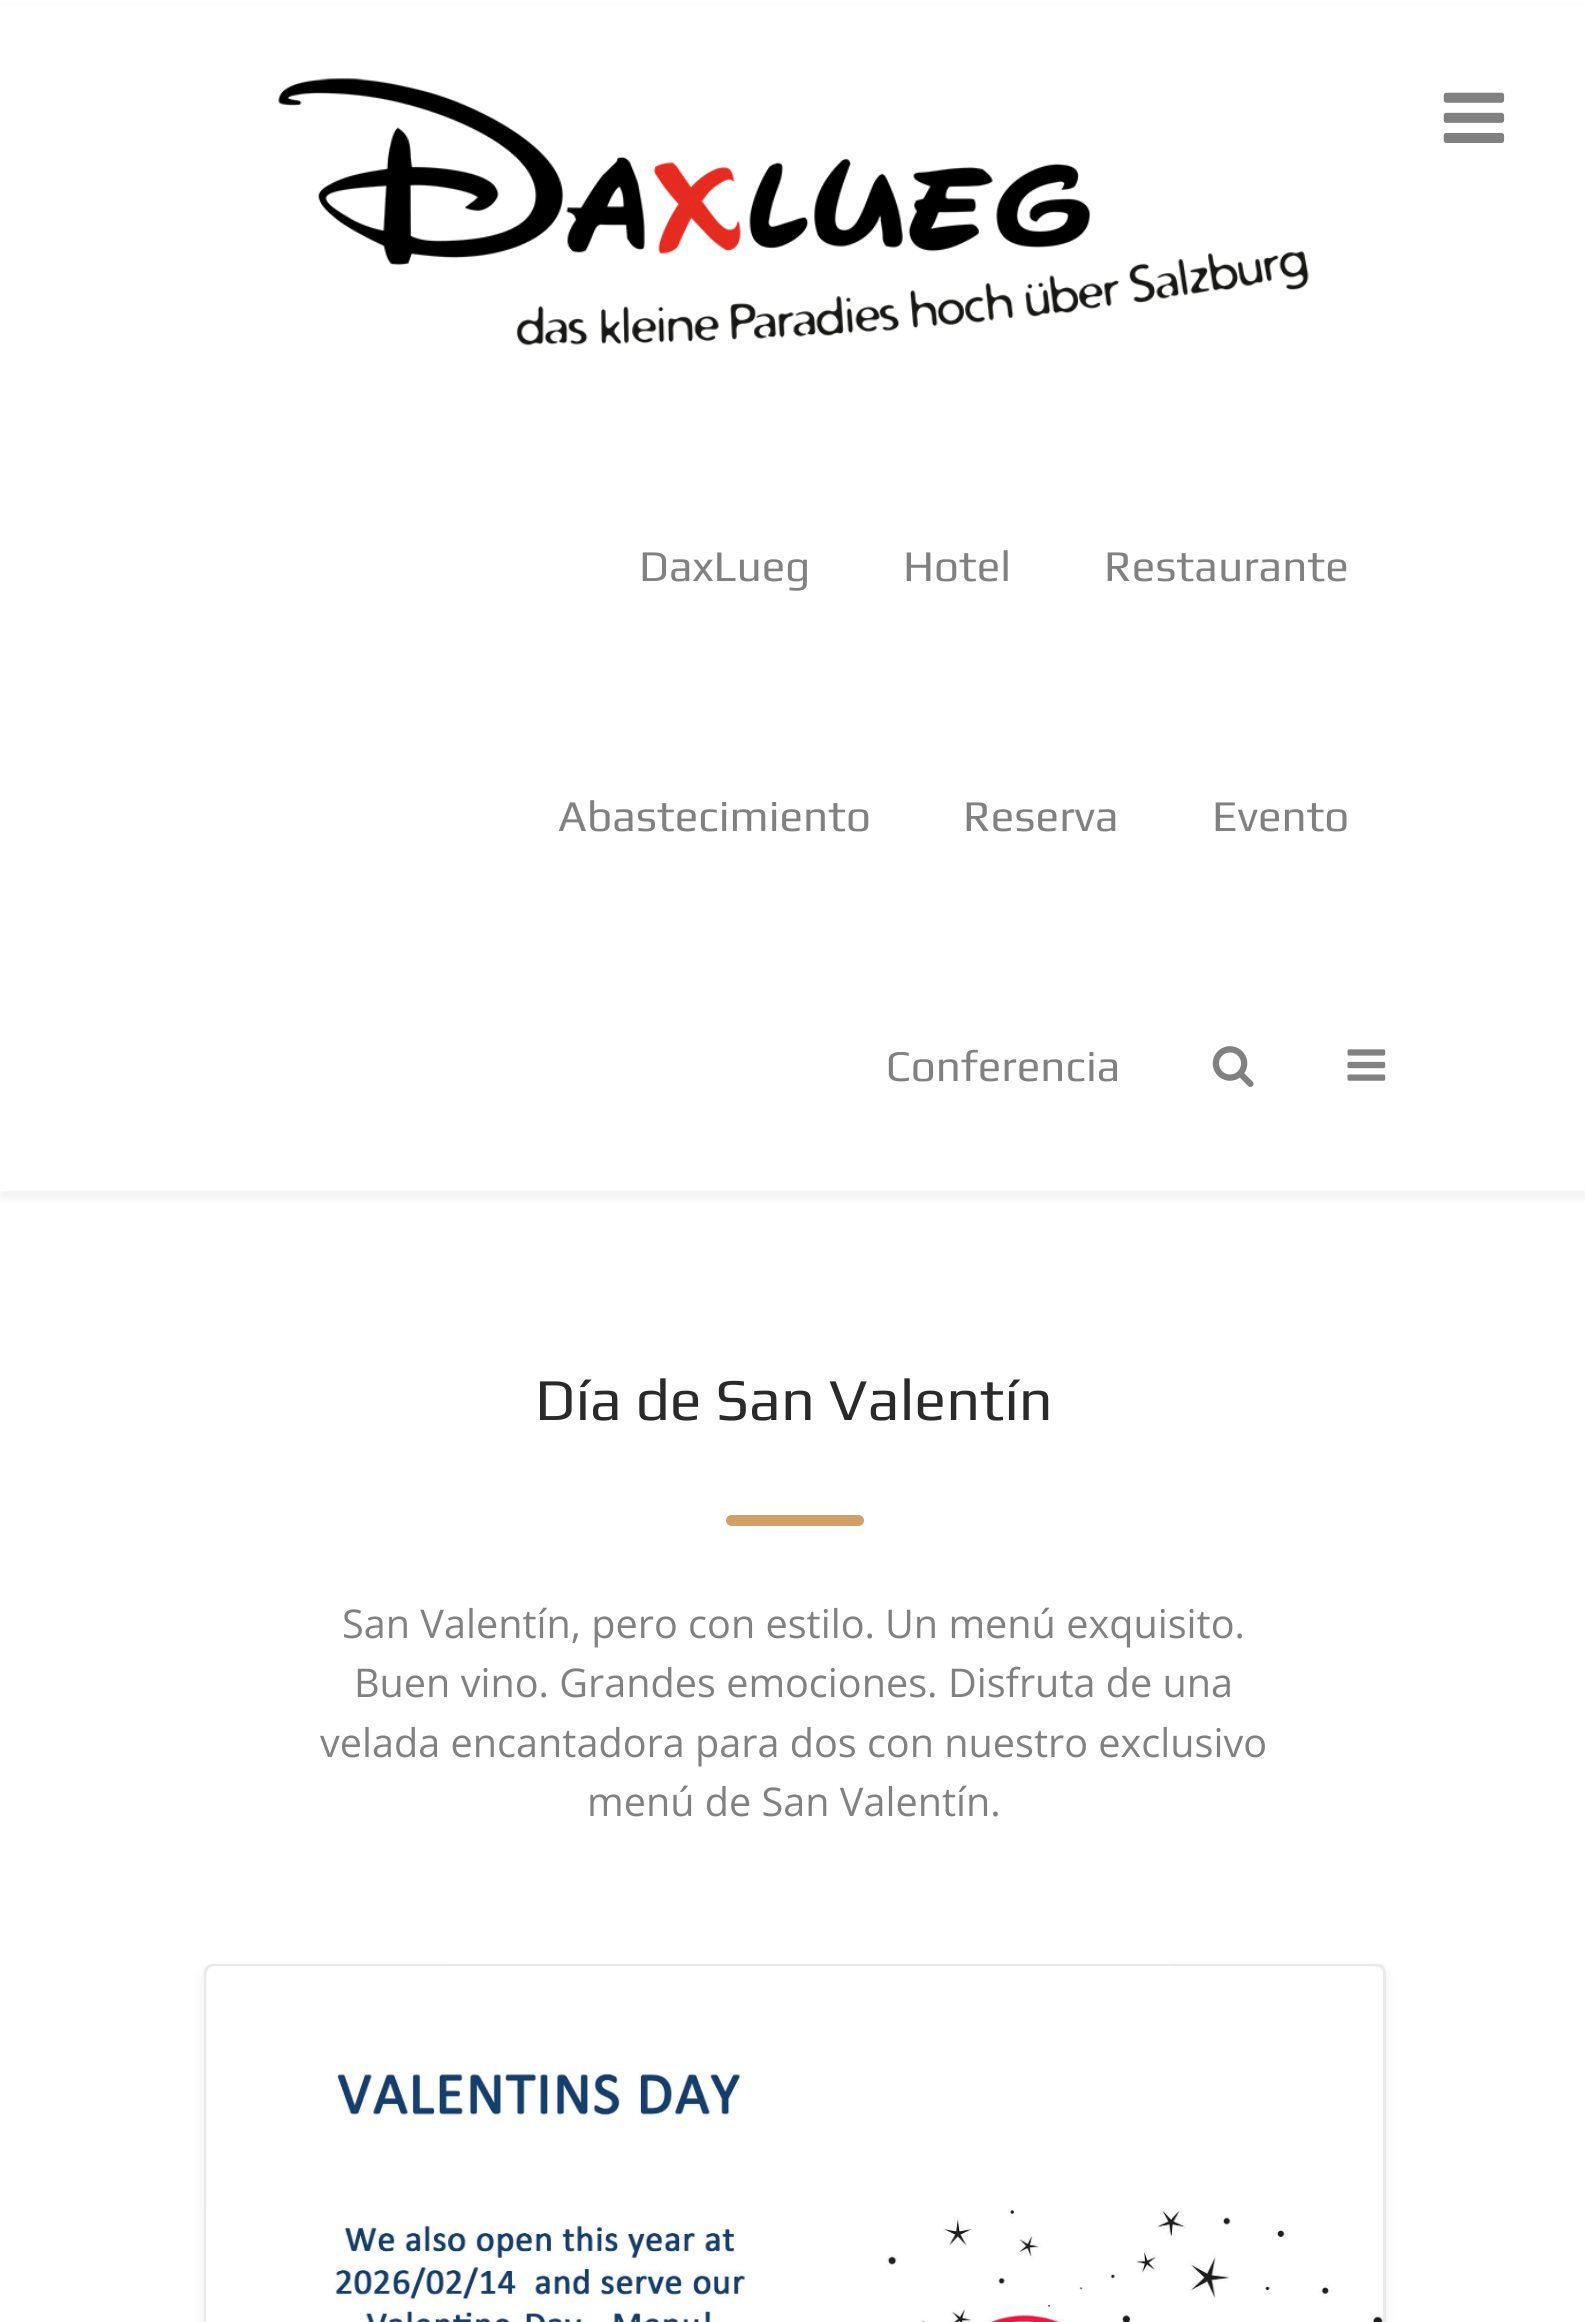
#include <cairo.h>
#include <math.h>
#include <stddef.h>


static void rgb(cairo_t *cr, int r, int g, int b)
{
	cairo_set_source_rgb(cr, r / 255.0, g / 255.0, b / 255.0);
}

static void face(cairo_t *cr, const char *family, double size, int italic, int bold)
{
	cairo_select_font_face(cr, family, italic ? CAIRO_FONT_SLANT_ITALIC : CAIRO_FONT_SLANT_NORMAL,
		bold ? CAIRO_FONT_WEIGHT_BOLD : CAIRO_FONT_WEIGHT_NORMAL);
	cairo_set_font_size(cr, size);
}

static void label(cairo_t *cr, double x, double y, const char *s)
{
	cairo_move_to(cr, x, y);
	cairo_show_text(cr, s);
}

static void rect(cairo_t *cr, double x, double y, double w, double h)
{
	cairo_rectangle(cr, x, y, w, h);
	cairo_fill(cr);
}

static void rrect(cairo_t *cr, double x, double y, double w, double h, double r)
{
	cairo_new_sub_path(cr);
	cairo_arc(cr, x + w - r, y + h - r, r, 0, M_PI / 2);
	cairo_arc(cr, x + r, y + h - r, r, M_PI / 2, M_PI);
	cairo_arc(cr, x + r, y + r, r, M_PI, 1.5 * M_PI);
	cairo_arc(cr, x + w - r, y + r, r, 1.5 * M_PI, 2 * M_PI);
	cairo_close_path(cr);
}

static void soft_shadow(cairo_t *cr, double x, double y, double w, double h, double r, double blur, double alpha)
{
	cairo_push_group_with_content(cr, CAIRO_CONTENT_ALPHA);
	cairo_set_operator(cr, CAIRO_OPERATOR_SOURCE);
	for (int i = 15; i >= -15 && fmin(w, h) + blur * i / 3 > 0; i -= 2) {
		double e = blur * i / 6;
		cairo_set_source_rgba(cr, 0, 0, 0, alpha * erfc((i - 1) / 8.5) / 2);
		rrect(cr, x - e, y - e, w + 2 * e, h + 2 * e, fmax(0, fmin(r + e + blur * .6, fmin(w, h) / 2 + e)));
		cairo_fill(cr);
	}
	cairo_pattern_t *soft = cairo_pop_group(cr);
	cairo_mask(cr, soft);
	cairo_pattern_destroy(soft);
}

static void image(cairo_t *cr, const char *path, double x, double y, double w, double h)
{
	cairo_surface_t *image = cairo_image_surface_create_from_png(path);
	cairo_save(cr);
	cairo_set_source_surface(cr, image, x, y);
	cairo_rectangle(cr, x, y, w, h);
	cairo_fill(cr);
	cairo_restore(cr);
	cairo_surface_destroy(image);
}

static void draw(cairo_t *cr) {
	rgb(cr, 255, 255, 255);
	cairo_paint(cr);
	rgb(cr, 0, 0, 0);
	soft_shadow(cr, 0, 8, 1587, 1191, 0, 4, 0.05);
	rgb(cr, 255, 255, 255);
	rect(cr, 0, 5, 1585, 1186);
	image(cr, "image0.png", 1443, 92, 62, 51);
	image(cr, "image1.png", 278, 78, 1031, 268);
	face(cr, "Play", 44, 0, 0);
	rgb(cr, 129, 129, 129);
	label(cr, 639, 581, "DaxLueg");
	label(cr, 903, 581, "Hotel");
	label(cr, 1104, 581, "Restaurante");
	label(cr, 558, 831, "Abastecimiento");
	label(cr, 963, 831, "Reserva");
	label(cr, 1212, 831, "Evento");
	label(cr, 886, 1081, "Conferencia");
	image(cr, "image2.png", 1212, 1046, 42, 41);
	image(cr, "image3.png", 1347, 1049, 39, 32);
	face(cr, "Play", 59.5, 0, 0);
	rgb(cr, 42, 42, 42);
	label(cr, 535, 1420, "Día de San Valentín");
	rgb(cr, 209, 160, 104);
	rrect(cr, 726, 1515, 138, 11, 5.5);
	cairo_fill(cr);
	face(cr, "Open Sans", 39.6, 0, 0);
	rgb(cr, 129, 129, 129);
	label(cr, 342, 1638, "San Valentín, pero con estilo.");
	label(cr, 885, 1638, "Un menú exquisito.");
	label(cr, 354, 1697, "Buen vino. Grandes emociones.");
	label(cr, 948, 1697, "Disfruta de una");
	label(cr, 320, 1757, "velada encantadora para dos con nuestro exclusivo");
	label(cr, 587, 1816, "menú de San Valentín.");
	rgb(cr, 0, 0, 0);
	soft_shadow(cr, 204, 1969, 1182, 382, 8, 7, 0.07);
	rrect(cr, 205.5, 1965.5, 1179, 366, 6.5);
	rgb(cr, 233, 233, 233);
	cairo_set_line_width(cr, 3);
	cairo_stroke(cr);
	image(cr, "image4.png", 206, 1966, 1177, 356);
}

int main(void) {
	cairo_surface_t *surface = cairo_image_surface_create(CAIRO_FORMAT_RGB24, 1585, 2322);
	cairo_t *cr = cairo_create(surface);
	cairo_font_options_t *options = cairo_font_options_create();
	cairo_font_options_set_hint_metrics(options, CAIRO_HINT_METRICS_OFF);
	cairo_font_options_set_hint_style(options, CAIRO_HINT_STYLE_NONE);
	cairo_set_font_options(cr, options);
	cairo_set_miter_limit(cr, 4);
	draw(cr);
	cairo_surface_write_to_png(surface, "render.png");
	cairo_font_options_destroy(options);
	cairo_destroy(cr);
	cairo_surface_destroy(surface);
	return 0;
}
